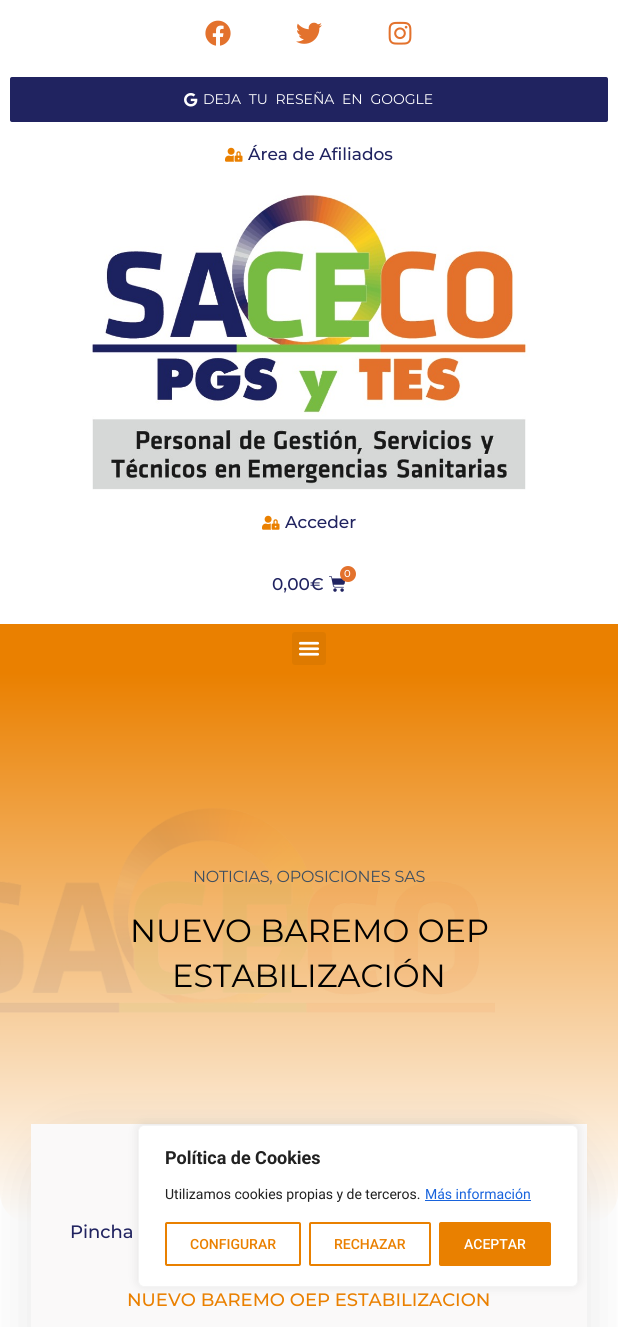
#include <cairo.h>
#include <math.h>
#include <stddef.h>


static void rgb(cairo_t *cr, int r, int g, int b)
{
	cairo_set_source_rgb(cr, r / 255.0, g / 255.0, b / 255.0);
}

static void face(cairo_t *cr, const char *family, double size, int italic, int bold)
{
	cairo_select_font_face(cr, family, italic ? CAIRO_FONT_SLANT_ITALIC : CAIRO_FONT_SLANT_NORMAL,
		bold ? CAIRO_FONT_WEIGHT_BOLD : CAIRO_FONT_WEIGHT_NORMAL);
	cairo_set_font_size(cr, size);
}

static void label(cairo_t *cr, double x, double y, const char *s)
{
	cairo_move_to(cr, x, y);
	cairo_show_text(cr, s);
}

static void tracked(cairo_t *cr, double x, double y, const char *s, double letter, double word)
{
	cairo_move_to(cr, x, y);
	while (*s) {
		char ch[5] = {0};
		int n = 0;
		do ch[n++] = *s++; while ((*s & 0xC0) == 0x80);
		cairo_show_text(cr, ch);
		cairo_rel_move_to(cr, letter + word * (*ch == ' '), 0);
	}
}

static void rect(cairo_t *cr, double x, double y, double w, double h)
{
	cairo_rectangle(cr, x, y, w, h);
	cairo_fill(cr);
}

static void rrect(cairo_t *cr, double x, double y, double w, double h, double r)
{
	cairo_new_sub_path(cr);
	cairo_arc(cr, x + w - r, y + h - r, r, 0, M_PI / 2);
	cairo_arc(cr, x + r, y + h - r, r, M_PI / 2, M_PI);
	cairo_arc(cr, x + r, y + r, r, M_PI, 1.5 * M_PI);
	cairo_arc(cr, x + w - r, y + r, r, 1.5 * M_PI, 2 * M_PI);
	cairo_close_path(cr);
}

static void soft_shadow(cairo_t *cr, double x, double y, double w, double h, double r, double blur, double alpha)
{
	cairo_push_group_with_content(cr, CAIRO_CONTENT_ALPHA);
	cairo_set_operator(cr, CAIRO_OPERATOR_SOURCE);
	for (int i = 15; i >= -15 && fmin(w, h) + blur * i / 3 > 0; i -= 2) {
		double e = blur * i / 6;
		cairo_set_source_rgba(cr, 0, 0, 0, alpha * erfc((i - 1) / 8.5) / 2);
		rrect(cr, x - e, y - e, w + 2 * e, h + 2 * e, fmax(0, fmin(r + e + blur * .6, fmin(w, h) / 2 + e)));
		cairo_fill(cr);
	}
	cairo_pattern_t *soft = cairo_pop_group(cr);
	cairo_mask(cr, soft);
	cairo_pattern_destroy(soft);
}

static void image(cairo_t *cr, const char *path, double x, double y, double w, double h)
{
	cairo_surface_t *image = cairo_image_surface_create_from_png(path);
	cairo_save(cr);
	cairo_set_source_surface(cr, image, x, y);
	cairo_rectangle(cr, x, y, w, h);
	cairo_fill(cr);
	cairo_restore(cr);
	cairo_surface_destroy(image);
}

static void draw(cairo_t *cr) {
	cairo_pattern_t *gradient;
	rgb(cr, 255, 255, 255);
	cairo_paint(cr);
	image(cr, "image0.png", 205, 20, 26, 26);
	image(cr, "image1.png", 296, 22, 26, 22);
	image(cr, "image2.png", 388, 21, 24, 24);
	rgb(cr, 32, 35, 96);
	rrect(cr, 10, 77, 598, 45, 2);
	cairo_fill(cr);
	image(cr, "image3.png", 184, 93, 14, 14);
	face(cr, "Montserrat", 14, 0, 0);
	rgb(cr, 255, 255, 255);
	tracked(cr, 203, 104, "DEJA TU RESEÑA EN GOOGLE", 0, 4);
	image(cr, "image4.png", 225, 147, 18, 15);
	face(cr, "Montserrat Medium", 17, 0, 0);
	rgb(cr, 32, 35, 96);
	label(cr, 248, 160, "Área de Afiliados");
	image(cr, "image5.png", 92, 194, 438, 296);
	image(cr, "image4.png", 262, 515, 18, 15);
	label(cr, 285, 528, "Acceder");
	image(cr, "image6.png", 329, 576, 16, 16);
	rgb(cr, 227, 114, 45);
	cairo_arc(cr, 348, 574, 8, 0, 2 * M_PI);
	cairo_fill(cr);
	face(cr, "Montserrat Medium", 10, 0, 0);
	rgb(cr, 255, 255, 255);
	label(cr, 344, 577, "0");
	face(cr, "Montserrat Medium", 17, 0, 0);
	rgb(cr, 32, 35, 96);
	label(cr, 272, 590, "0,00€");
	rgb(cr, 234, 128, 0);
	rect(cr, 0, 624, 618, 49);
	rgb(cr, 222, 122, 0);
	rrect(cr, 292, 632, 34, 33, 3);
	cairo_fill(cr);
	image(cr, "image7.png", 298, 641, 22, 15);
	gradient = cairo_pattern_create_linear(309, 673, 309, 1223);
	cairo_pattern_add_color_stop_rgba(gradient, 0, 0.918, 0.502, 0, 1);
	cairo_pattern_add_color_stop_rgba(gradient, 1, 1, 1, 1, 1);
	cairo_set_source(cr, gradient);
	cairo_pattern_destroy(gradient);
	cairo_new_path(cr);
	cairo_move_to(cr, 0, 673);
	cairo_line_to(cr, 618, 673);
	cairo_line_to(cr, 618, 1193);
	cairo_curve_to(cr, 618, 1209.5, 604.5, 1223, 588, 1223);
	cairo_line_to(cr, 30, 1223);
	cairo_curve_to(cr, 13.5, 1223, 0, 1209.5, 0, 1193);
	cairo_close_path(cr);
	cairo_fill(cr);
	image(cr, "image8.png", 0, 808, 495, 205);
	face(cr, "Montserrat", 16, 0, 0);
	rgb(cr, 61, 78, 96);
	tracked(cr, 193, 882, "NOTICIAS, OPOSICIONES SAS", -0.2, 0);
	face(cr, "Montserrat", 32, 0, 0);
	rgb(cr, 0, 0, 0);
	label(cr, 130, 942, "NUEVO BAREMO OEP");
	label(cr, 172, 987, "ESTABILIZACIÓN");
	rgb(cr, 0, 0, 0);
	soft_shadow(cr, 31, 1139, 556, 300, 50, 25, 0.1);
	rgb(cr, 250, 249, 249);
	rect(cr, 31, 1124, 556, 203);
	face(cr, "Montserrat Medium", 18, 0, 0);
	rgb(cr, 32, 35, 96);
	label(cr, 70, 1238, "Pincha");
	rgb(cr, 234, 128, 0);
	label(cr, 127, 1306, "NUEVO BAREMO OEP ESTABILIZACION");
	rgb(cr, 172, 171, 171);
	soft_shadow(cr, 138, 1124, 440, 162, 6, 5, 0.3);
	rgb(cr, 255, 255, 255);
	rrect(cr, 138.5, 1125.5, 439, 161, 5.5);
	cairo_fill_preserve(cr);
	rgb(cr, 244, 244, 244);
	cairo_set_line_width(cr, 1);
	cairo_stroke(cr);
	face(cr, "Roboto", 18, 0, 1);
	rgb(cr, 33, 33, 33);
	label(cr, 165, 1164, "Política de Cookies");
	face(cr, "Roboto", 14, 0, 0);
	label(cr, 165, 1199, "Utilizamos cookies propias y de terceros.");
	rgb(cr, 24, 99, 220);
	label(cr, 425, 1199, "Más información");
	rect(cr, 425, 1200, 106, 1);
	rrect(cr, 166, 1223, 134, 42, 1);
	rgb(cr, 233, 128, 0);
	cairo_set_line_width(cr, 2);
	cairo_stroke(cr);
	face(cr, "Roboto Medium", 14, 0, 0);
	rgb(cr, 234, 128, 0);
	label(cr, 190, 1249, "CONFIGURAR");
	rrect(cr, 310, 1223, 120, 42, 1);
	rgb(cr, 233, 128, 0);
	cairo_stroke(cr);
	rgb(cr, 234, 128, 0);
	label(cr, 334, 1249, "RECHAZAR");
	rgb(cr, 233, 128, 0);
	rrect(cr, 440, 1223, 110, 42, 1);
	cairo_fill_preserve(cr);
	cairo_stroke(cr);
	rgb(cr, 255, 255, 255);
	label(cr, 464, 1249, "ACEPTAR");
}

int main(void) {
	cairo_surface_t *surface = cairo_image_surface_create(CAIRO_FORMAT_RGB24, 618, 1327);
	cairo_t *cr = cairo_create(surface);
	cairo_font_options_t *options = cairo_font_options_create();
	cairo_font_options_set_hint_metrics(options, CAIRO_HINT_METRICS_OFF);
	cairo_font_options_set_hint_style(options, CAIRO_HINT_STYLE_NONE);
	cairo_set_font_options(cr, options);
	cairo_set_miter_limit(cr, 4);
	draw(cr);
	cairo_surface_write_to_png(surface, "render.png");
	cairo_font_options_destroy(options);
	cairo_destroy(cr);
	cairo_surface_destroy(surface);
	return 0;
}
